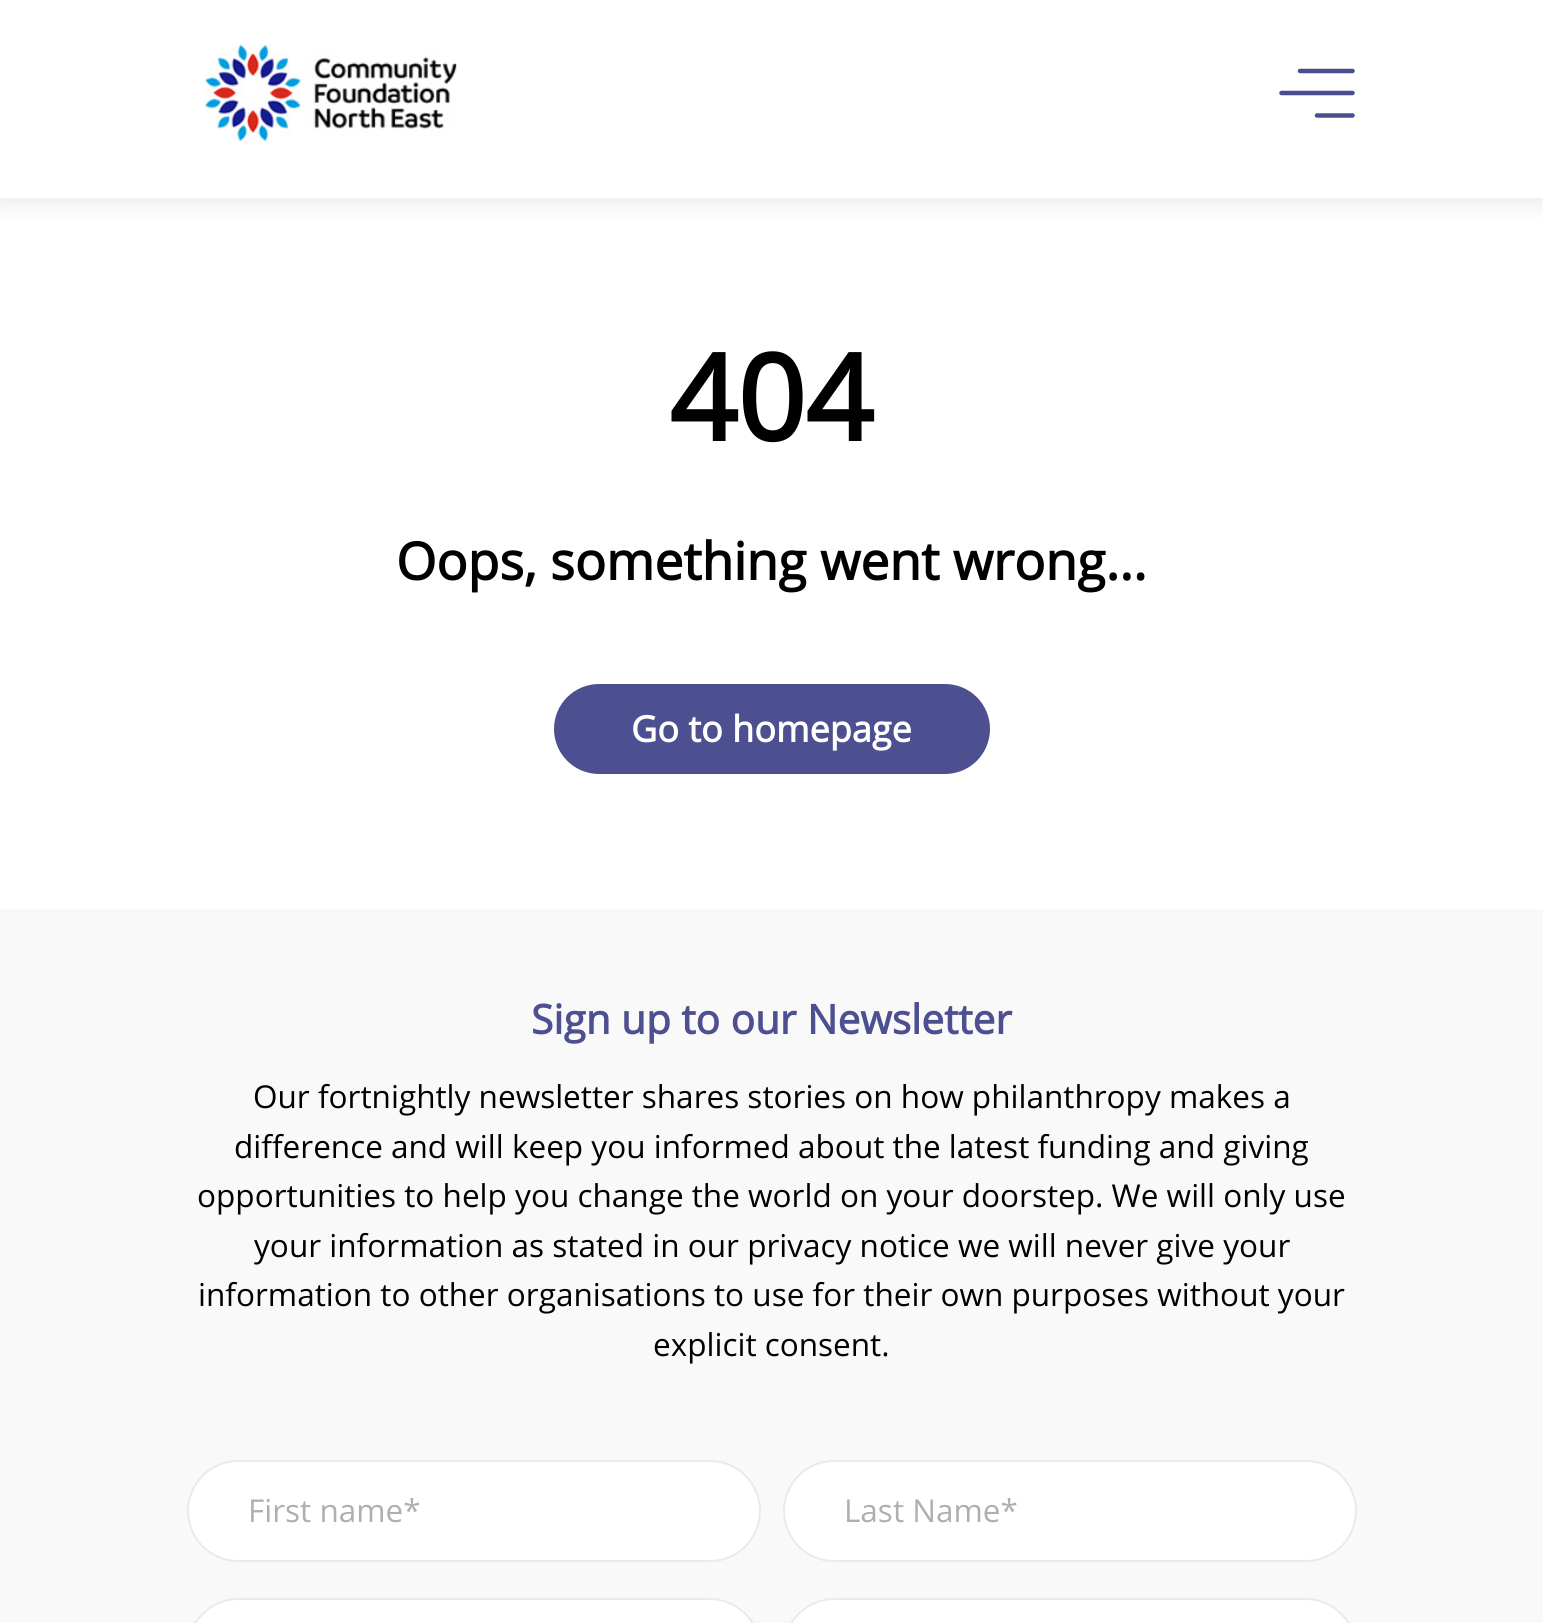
#include <cairo.h>
#include <math.h>
#include <stddef.h>


static void rgb(cairo_t *cr, int r, int g, int b)
{
	cairo_set_source_rgb(cr, r / 255.0, g / 255.0, b / 255.0);
}

static void face(cairo_t *cr, const char *family, double size, int italic, int bold)
{
	cairo_select_font_face(cr, family, italic ? CAIRO_FONT_SLANT_ITALIC : CAIRO_FONT_SLANT_NORMAL,
		bold ? CAIRO_FONT_WEIGHT_BOLD : CAIRO_FONT_WEIGHT_NORMAL);
	cairo_set_font_size(cr, size);
}

static void label(cairo_t *cr, double x, double y, const char *s)
{
	cairo_move_to(cr, x, y);
	cairo_show_text(cr, s);
}

static void rect(cairo_t *cr, double x, double y, double w, double h)
{
	cairo_rectangle(cr, x, y, w, h);
	cairo_fill(cr);
}

static void rrect(cairo_t *cr, double x, double y, double w, double h, double r)
{
	cairo_new_sub_path(cr);
	cairo_arc(cr, x + w - r, y + h - r, r, 0, M_PI / 2);
	cairo_arc(cr, x + r, y + h - r, r, M_PI / 2, M_PI);
	cairo_arc(cr, x + r, y + r, r, M_PI, 1.5 * M_PI);
	cairo_arc(cr, x + w - r, y + r, r, 1.5 * M_PI, 2 * M_PI);
	cairo_close_path(cr);
}

static void soft_shadow(cairo_t *cr, double x, double y, double w, double h, double r, double blur, double alpha)
{
	cairo_push_group_with_content(cr, CAIRO_CONTENT_ALPHA);
	cairo_set_operator(cr, CAIRO_OPERATOR_SOURCE);
	for (int i = 15; i >= -15 && fmin(w, h) + blur * i / 3 > 0; i -= 2) {
		double e = blur * i / 6;
		cairo_set_source_rgba(cr, 0, 0, 0, alpha * erfc((i - 1) / 8.5) / 2);
		rrect(cr, x - e, y - e, w + 2 * e, h + 2 * e, fmax(0, fmin(r + e + blur * .6, fmin(w, h) / 2 + e)));
		cairo_fill(cr);
	}
	cairo_pattern_t *soft = cairo_pop_group(cr);
	cairo_mask(cr, soft);
	cairo_pattern_destroy(soft);
}

static void image(cairo_t *cr, const char *path, double x, double y, double w, double h)
{
	cairo_surface_t *image = cairo_image_surface_create_from_png(path);
	cairo_save(cr);
	cairo_set_source_surface(cr, image, x, y);
	cairo_rectangle(cr, x, y, w, h);
	cairo_fill(cr);
	cairo_restore(cr);
	cairo_surface_destroy(image);
}

static void draw(cairo_t *cr) {
	rgb(cr, 255, 255, 255);
	cairo_paint(cr);
	cairo_save(cr);
	cairo_rectangle(cr, 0, 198, 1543, 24);
	cairo_clip(cr);
	rgb(cr, 209, 209, 209);
	soft_shadow(cr, 0, 5, 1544, 198, 0, 11, 0.5);
	cairo_restore(cr);
	image(cr, "image0.png", 205, 43, 252, 99);
	cairo_new_path(cr);
	cairo_move_to(cr, 1352.5, 93);
	cairo_line_to(cr, 1281.5, 93);
	rgb(cr, 75, 78, 142);
	cairo_set_line_width(cr, 4.5);
	cairo_set_line_cap(cr, CAIRO_LINE_CAP_ROUND);
	cairo_set_line_join(cr, CAIRO_LINE_JOIN_ROUND);
	cairo_stroke(cr);
	cairo_new_path(cr);
	cairo_move_to(cr, 1352.5, 115.5);
	cairo_line_to(cr, 1317, 115.5);
	cairo_move_to(cr, 1352.5, 71);
	cairo_line_to(cr, 1300, 71);
	cairo_stroke(cr);
	face(cr, "Open Sans", 119, 0, 1);
	rgb(cr, 0, 0, 0);
	label(cr, 669, 441, "404");
	face(cr, "Open Sans", 51.75, 0, 1);
	label(cr, 396, 580, "Oops, something went wrong...");
	rgb(cr, 76, 79, 144);
	rrect(cr, 554, 684, 436, 90, 45);
	cairo_fill(cr);
	face(cr, "Open Sans", 36, 0, 1);
	rgb(cr, 255, 255, 255);
	label(cr, 631, 742, "Go to homepage");
	rgb(cr, 249, 249, 249);
	rect(cr, 0, 909, 1543, 714);
	face(cr, "Open Sans", 40.5, 0, 1);
	rgb(cr, 76, 79, 144);
	label(cr, 531, 1034, "Sign up to our Newsletter");
	face(cr, "Open Sans", 31.5, 0, 0);
	rgb(cr, 0, 0, 0);
	label(cr, 253, 1108, "Our fortnightly newsletter shares stories on how philanthropy makes a");
	label(cr, 234, 1158, "difference and will keep you informed about the latest funding and giving");
	label(cr, 197, 1207, "opportunities to help you change the world on your doorstep. We will only use");
	label(cr, 254, 1257, "your information as stated in our privacy notice we will never give your");
	label(cr, 198, 1306, "information to other organisations to use for their own purposes without your");
	label(cr, 653, 1356, "explicit consent.");
	rgb(cr, 255, 255, 255);
	rrect(cr, 188, 1461, 572, 100, 50);
	cairo_fill_preserve(cr);
	rgb(cr, 234, 234, 234);
	cairo_set_line_width(cr, 2);
	cairo_set_line_cap(cr, CAIRO_LINE_CAP_BUTT);
	cairo_set_line_join(cr, CAIRO_LINE_JOIN_MITER);
	cairo_stroke(cr);
	rgb(cr, 175, 175, 175);
	label(cr, 248, 1522, "First name*");
	rgb(cr, 255, 255, 255);
	rrect(cr, 784, 1461, 572, 100, 50);
	cairo_fill_preserve(cr);
	rgb(cr, 234, 234, 234);
	cairo_stroke(cr);
	rgb(cr, 175, 175, 175);
	label(cr, 844, 1522, "Last Name*");
	rgb(cr, 255, 255, 255);
	rrect(cr, 188, 1599, 572, 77, 50.5);
	cairo_fill_preserve(cr);
	rgb(cr, 234, 234, 234);
	cairo_stroke(cr);
	rgb(cr, 255, 255, 255);
	rrect(cr, 784, 1599, 572, 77, 50.5);
	cairo_fill_preserve(cr);
	rgb(cr, 234, 234, 234);
	cairo_stroke(cr);
}

int main(void) {
	cairo_surface_t *surface = cairo_image_surface_create(CAIRO_FORMAT_RGB24, 1543, 1623);
	cairo_t *cr = cairo_create(surface);
	cairo_font_options_t *options = cairo_font_options_create();
	cairo_font_options_set_hint_metrics(options, CAIRO_HINT_METRICS_OFF);
	cairo_font_options_set_hint_style(options, CAIRO_HINT_STYLE_NONE);
	cairo_set_font_options(cr, options);
	cairo_set_miter_limit(cr, 4);
	draw(cr);
	cairo_surface_write_to_png(surface, "render.png");
	cairo_font_options_destroy(options);
	cairo_destroy(cr);
	cairo_surface_destroy(surface);
	return 0;
}
